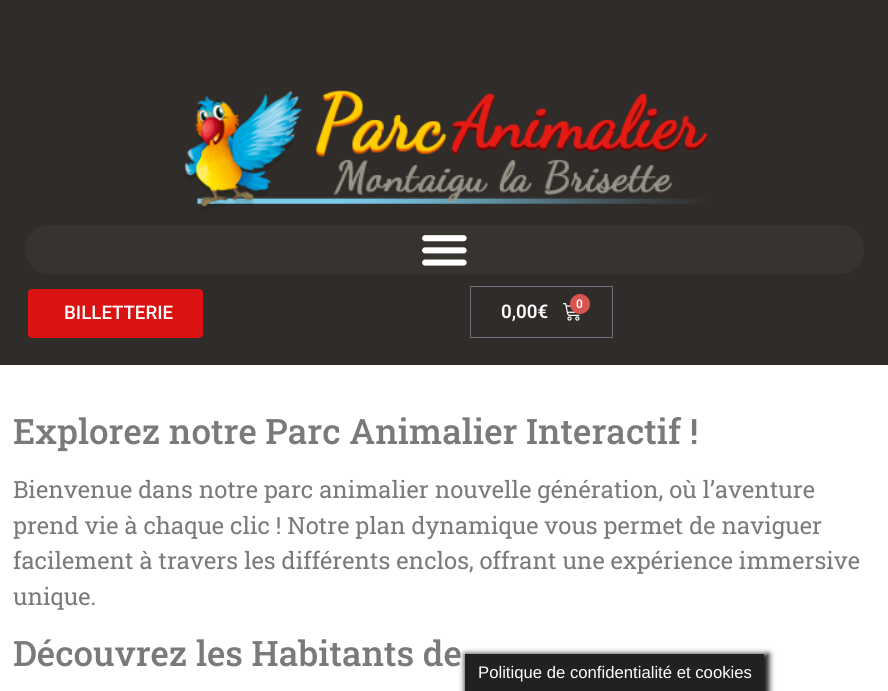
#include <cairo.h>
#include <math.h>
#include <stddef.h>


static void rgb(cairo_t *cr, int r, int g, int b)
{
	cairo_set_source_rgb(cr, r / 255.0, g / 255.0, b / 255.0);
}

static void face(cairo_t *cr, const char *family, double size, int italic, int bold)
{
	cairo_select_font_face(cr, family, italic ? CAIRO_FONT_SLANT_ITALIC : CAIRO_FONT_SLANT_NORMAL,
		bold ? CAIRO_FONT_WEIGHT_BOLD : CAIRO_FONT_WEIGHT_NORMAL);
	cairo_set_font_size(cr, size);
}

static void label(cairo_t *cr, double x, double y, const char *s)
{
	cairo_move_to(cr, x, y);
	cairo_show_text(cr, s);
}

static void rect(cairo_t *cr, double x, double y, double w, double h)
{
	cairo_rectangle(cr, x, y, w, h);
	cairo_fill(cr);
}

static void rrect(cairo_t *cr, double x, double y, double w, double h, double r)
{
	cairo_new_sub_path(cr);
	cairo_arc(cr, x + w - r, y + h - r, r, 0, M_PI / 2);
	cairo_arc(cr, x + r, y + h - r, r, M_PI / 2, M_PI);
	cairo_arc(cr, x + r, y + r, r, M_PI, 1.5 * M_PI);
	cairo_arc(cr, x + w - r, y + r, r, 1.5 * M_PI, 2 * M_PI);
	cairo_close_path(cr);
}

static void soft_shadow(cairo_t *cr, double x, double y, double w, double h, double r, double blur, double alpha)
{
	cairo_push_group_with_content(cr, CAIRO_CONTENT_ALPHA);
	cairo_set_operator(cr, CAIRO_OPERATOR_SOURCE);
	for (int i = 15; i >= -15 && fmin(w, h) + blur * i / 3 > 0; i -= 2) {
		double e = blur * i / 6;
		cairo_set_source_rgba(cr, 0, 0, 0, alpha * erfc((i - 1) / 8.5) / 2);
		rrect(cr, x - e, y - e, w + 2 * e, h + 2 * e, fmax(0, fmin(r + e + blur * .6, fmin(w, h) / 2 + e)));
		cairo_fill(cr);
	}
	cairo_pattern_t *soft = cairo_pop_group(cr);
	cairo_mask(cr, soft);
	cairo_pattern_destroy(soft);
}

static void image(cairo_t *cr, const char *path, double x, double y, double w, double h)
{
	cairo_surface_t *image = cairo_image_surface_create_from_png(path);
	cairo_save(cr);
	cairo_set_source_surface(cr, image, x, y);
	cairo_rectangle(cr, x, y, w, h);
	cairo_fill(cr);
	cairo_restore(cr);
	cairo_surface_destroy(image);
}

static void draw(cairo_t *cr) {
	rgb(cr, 255, 255, 255);
	cairo_paint(cr);
	rgb(cr, 48, 44, 42);
	rect(cr, 0, 0, 888, 365);
	image(cr, "image0.png", 184, 90, 524, 122);
	rgb(cr, 55, 52, 48);
	rrect(cr, 25, 225, 839, 49, 24.5);
	cairo_fill(cr);
	image(cr, "image1.png", 422, 235, 45, 31);
	rgb(cr, 219, 18, 18);
	rrect(cr, 28, 289, 175, 49, 4);
	cairo_fill(cr);
	face(cr, "Roboto Medium", 18.75, 0, 0);
	rgb(cr, 255, 255, 255);
	label(cr, 64, 319, "BILLETTERIE");
	cairo_rectangle(cr, 470.5, 286.5, 142, 51);
	rgb(cr, 105, 114, 125);
	cairo_set_line_width(cr, 1);
	cairo_stroke(cr);
	face(cr, "Roboto SemiBold", 18.75, 0, 0);
	rgb(cr, 255, 255, 255);
	label(cr, 501, 318, "0,00€");
	image(cr, "image2.png", 563, 303, 17, 18);
	rgb(cr, 217, 83, 79);
	cairo_arc(cr, 580, 304, 10, 0, 2 * M_PI);
	cairo_fill(cr);
	face(cr, "Roboto SemiBold", 12, 0, 0);
	rgb(cr, 255, 255, 255);
	label(cr, 576, 308, "0");
	face(cr, "Roboto Slab Medium", 35, 0, 0);
	rgb(cr, 122, 122, 122);
	label(cr, 13, 444, "Explorez notre Parc Animalier Interactif !");
	face(cr, "Roboto Slab", 23.75, 0, 0);
	label(cr, 13, 498, "Bienvenue dans notre parc animalier nouvelle génération, où l’aventure");
	label(cr, 13, 534, "prend vie à chaque clic ! Notre plan dynamique vous permet de naviguer");
	label(cr, 13, 569, "facilement à travers les différents enclos, offrant une expérience immersive");
	label(cr, 13, 605, "unique.");
	face(cr, "Roboto Slab Medium", 35, 0, 0);
	label(cr, 13, 666, "Découvrez les Habitants de");
	rgb(cr, 22, 22, 22);
	soft_shadow(cr, 465, 654, 304, 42, 0, 3, 1);
	rgb(cr, 33, 33, 33);
	rect(cr, 465, 654, 299, 37);
	face(cr, "Liberation Sans", 16.7, 0, 0);
	rgb(cr, 255, 255, 255);
	label(cr, 478, 678, "Politique de confidentialité et cookies");
}

int main(void) {
	cairo_surface_t *surface = cairo_image_surface_create(CAIRO_FORMAT_RGB24, 888, 691);
	cairo_t *cr = cairo_create(surface);
	cairo_font_options_t *options = cairo_font_options_create();
	cairo_font_options_set_hint_metrics(options, CAIRO_HINT_METRICS_OFF);
	cairo_font_options_set_hint_style(options, CAIRO_HINT_STYLE_NONE);
	cairo_set_font_options(cr, options);
	cairo_set_miter_limit(cr, 4);
	draw(cr);
	cairo_surface_write_to_png(surface, "render.png");
	cairo_font_options_destroy(options);
	cairo_destroy(cr);
	cairo_surface_destroy(surface);
	return 0;
}
